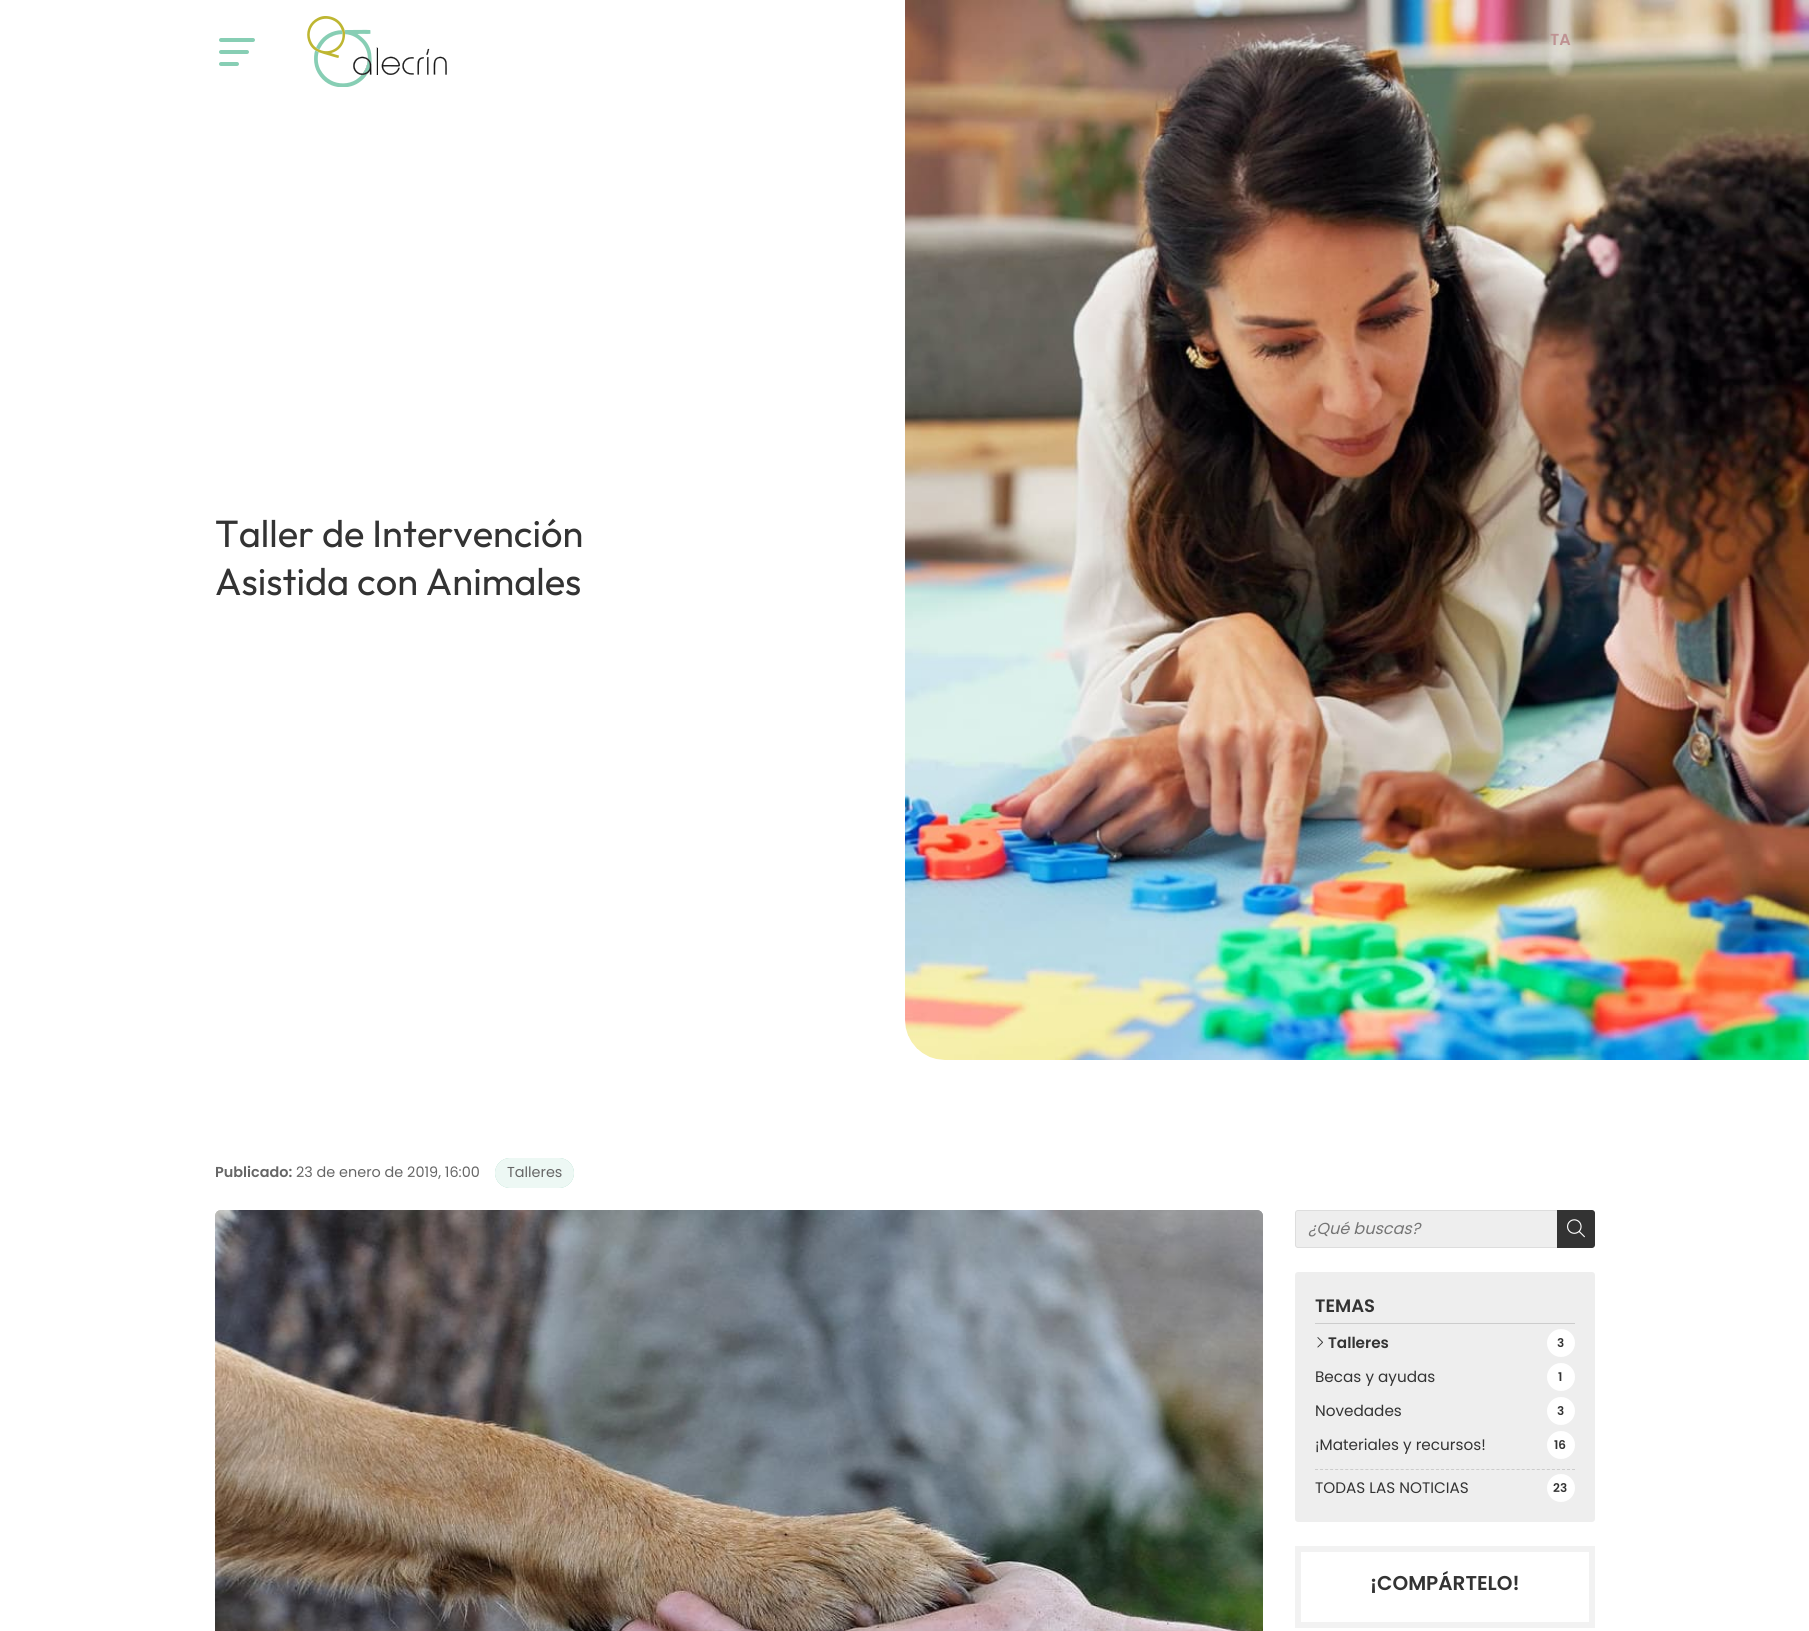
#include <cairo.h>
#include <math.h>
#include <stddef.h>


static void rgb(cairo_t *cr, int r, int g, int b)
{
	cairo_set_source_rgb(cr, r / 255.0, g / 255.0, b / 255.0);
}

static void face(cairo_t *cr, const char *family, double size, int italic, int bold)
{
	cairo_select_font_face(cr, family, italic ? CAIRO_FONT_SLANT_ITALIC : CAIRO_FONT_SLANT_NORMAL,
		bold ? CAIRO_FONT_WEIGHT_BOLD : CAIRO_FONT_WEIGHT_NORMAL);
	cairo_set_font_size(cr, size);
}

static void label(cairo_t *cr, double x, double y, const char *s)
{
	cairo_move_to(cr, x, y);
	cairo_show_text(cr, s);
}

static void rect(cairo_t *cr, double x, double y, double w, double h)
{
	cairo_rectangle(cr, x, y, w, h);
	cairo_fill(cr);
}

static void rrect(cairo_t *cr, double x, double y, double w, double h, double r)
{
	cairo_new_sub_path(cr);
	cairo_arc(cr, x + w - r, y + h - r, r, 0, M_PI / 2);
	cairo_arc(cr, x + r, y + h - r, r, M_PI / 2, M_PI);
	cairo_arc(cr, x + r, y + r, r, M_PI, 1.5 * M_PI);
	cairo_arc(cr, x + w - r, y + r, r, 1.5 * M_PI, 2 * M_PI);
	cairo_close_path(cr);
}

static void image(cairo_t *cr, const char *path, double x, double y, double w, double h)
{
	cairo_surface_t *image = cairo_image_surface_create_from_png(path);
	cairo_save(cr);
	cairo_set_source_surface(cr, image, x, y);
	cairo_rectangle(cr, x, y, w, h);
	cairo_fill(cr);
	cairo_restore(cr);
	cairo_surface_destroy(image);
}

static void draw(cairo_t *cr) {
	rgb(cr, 255, 255, 255);
	cairo_paint(cr);
	rgb(cr, 135, 206, 180);
	rrect(cr, 219, 38, 36, 4, 2);
	cairo_fill(cr);
	rrect(cr, 219, 50, 30, 4, 2);
	cairo_fill(cr);
	rrect(cr, 219, 62, 20, 4, 2);
	cairo_fill(cr);
	image(cr, "image0.png", 307, 16, 140, 71);
	image(cr, "image1.png", 905, 0, 904, 1060);
	face(cr, "Poppins SemiBold", 16, 0, 0);
	rgb(cr, 190, 145, 146);
	label(cr, 1550, 45, "TA");
	face(cr, "Outfit", 38, 0, 0);
	rgb(cr, 51, 51, 51);
	label(cr, 215, 547, "Taller de Intervención");
	label(cr, 215, 595, "Asistida con Animales");
	face(cr, "Poppins SemiBold", 14.4, 0, 0);
	rgb(cr, 102, 102, 102);
	label(cr, 215, 1177, "Publicado:");
	face(cr, "Poppins", 14.4, 0, 0);
	label(cr, 296, 1177, "23 de enero de 2019, 16:00");
	rgb(cr, 135, 206, 180);
	rrect(cr, 495, 1158, 79, 30, 15);
	cairo_fill(cr);
	cairo_set_source_rgba(cr, 1, 1, 1, 0.85);
	rrect(cr, 495, 1158, 79, 30, 15);
	cairo_fill(cr);
	rgb(cr, 102, 102, 102);
	label(cr, 507, 1177, "Talleres");
	image(cr, "image2.png", 215, 1210, 1048, 6);
	image(cr, "image3.png", 215, 1210, 1048, 421);
	rgb(cr, 238, 238, 238);
	rrect(cr, 1295.5, 1210.5, 299, 37, 2.5);
	cairo_fill_preserve(cr);
	rgb(cr, 221, 221, 221);
	cairo_set_line_width(cr, 1);
	cairo_stroke(cr);
	face(cr, "Poppins", 16, 1, 0);
	rgb(cr, 117, 117, 117);
	label(cr, 1308, 1234, "¿Qué buscas?");
	rgb(cr, 51, 51, 51);
	cairo_new_path(cr);
	cairo_move_to(cr, 1557, 1210);
	cairo_line_to(cr, 1592, 1210);
	cairo_curve_to(cr, 1593.5, 1210, 1595, 1211.5, 1595, 1213);
	cairo_line_to(cr, 1595, 1245);
	cairo_curve_to(cr, 1595, 1246.5, 1593.5, 1248, 1592, 1248);
	cairo_line_to(cr, 1557, 1248);
	cairo_close_path(cr);
	cairo_fill(cr);
	image(cr, "image4.png", 1567, 1219, 18, 19);
	rgb(cr, 238, 238, 238);
	rrect(cr, 1295, 1272, 300, 250, 3);
	cairo_fill(cr);
	rgb(cr, 204, 204, 204);
	rect(cr, 1315, 1323, 260, 1);
	face(cr, "Poppins SemiBold", 18, 0, 0);
	rgb(cr, 51, 51, 51);
	label(cr, 1315, 1312, "TEMAS");
	image(cr, "image5.png", 1317, 1337, 6, 11);
	face(cr, "Poppins SemiBold", 15.25, 0, 0);
	label(cr, 1328, 1348, "Talleres");
	rgb(cr, 255, 255, 255);
	cairo_new_path(cr);
	cairo_arc(cr, 1561, 1343, 14, 0, 2 * M_PI);
	cairo_fill(cr);
	face(cr, "Poppins SemiBold", 12, 0, 0);
	rgb(cr, 51, 51, 51);
	label(cr, 1557, 1347, "3");
	face(cr, "Poppins", 15.25, 0, 0);
	label(cr, 1315, 1382, "Becas y ayudas");
	rgb(cr, 255, 255, 255);
	cairo_new_path(cr);
	cairo_arc(cr, 1561, 1377, 14, 0, 2 * M_PI);
	cairo_fill(cr);
	face(cr, "Poppins SemiBold", 12, 0, 0);
	rgb(cr, 51, 51, 51);
	label(cr, 1558, 1381, "1");
	face(cr, "Poppins", 15.25, 0, 0);
	label(cr, 1315, 1416, "Novedades");
	rgb(cr, 255, 255, 255);
	cairo_new_path(cr);
	cairo_arc(cr, 1561, 1411, 14, 0, 2 * M_PI);
	cairo_fill(cr);
	face(cr, "Poppins SemiBold", 12, 0, 0);
	rgb(cr, 51, 51, 51);
	label(cr, 1557, 1415, "3");
	face(cr, "Poppins", 15.25, 0, 0);
	label(cr, 1315, 1450, "¡Materiales y recursos!");
	rgb(cr, 255, 255, 255);
	cairo_new_path(cr);
	cairo_arc(cr, 1561, 1445, 14, 0, 2 * M_PI);
	cairo_fill(cr);
	face(cr, "Poppins SemiBold", 12, 0, 0);
	rgb(cr, 51, 51, 51);
	label(cr, 1554, 1449, "16");
	cairo_new_path(cr);
	cairo_move_to(cr, 1315, 1469.5);
	cairo_line_to(cr, 1575, 1469.5);
	rgb(cr, 204, 204, 204);
	cairo_set_dash(cr, (double[]){3, 2.04}, 2, 0);
	cairo_stroke(cr);
	face(cr, "Poppins", 15.25, 0, 0);
	rgb(cr, 51, 51, 51);
	label(cr, 1315, 1493, "TODAS LAS NOTICIAS");
	rgb(cr, 255, 255, 255);
	cairo_new_path(cr);
	cairo_arc(cr, 1561, 1488, 14, 0, 2 * M_PI);
	cairo_fill(cr);
	face(cr, "Poppins SemiBold", 12, 0, 0);
	rgb(cr, 51, 51, 51);
	label(cr, 1553, 1492, "23");
	cairo_rectangle(cr, 1298, 1549, 294, 76);
	rgb(cr, 242, 242, 242);
	cairo_set_line_width(cr, 6);
	cairo_set_dash(cr, NULL, 0, 0);
	cairo_stroke(cr);
	face(cr, "Poppins SemiBold", 20, 0, 0);
	rgb(cr, 51, 51, 51);
	label(cr, 1370, 1590, "¡COMPÁRTELO!");
}

int main(void) {
	cairo_surface_t *surface = cairo_image_surface_create(CAIRO_FORMAT_RGB24, 1809, 1631);
	cairo_t *cr = cairo_create(surface);
	cairo_font_options_t *options = cairo_font_options_create();
	cairo_font_options_set_hint_metrics(options, CAIRO_HINT_METRICS_OFF);
	cairo_font_options_set_hint_style(options, CAIRO_HINT_STYLE_NONE);
	cairo_set_font_options(cr, options);
	cairo_set_miter_limit(cr, 4);
	draw(cr);
	cairo_surface_write_to_png(surface, "render.png");
	cairo_font_options_destroy(options);
	cairo_destroy(cr);
	cairo_surface_destroy(surface);
	return 0;
}
